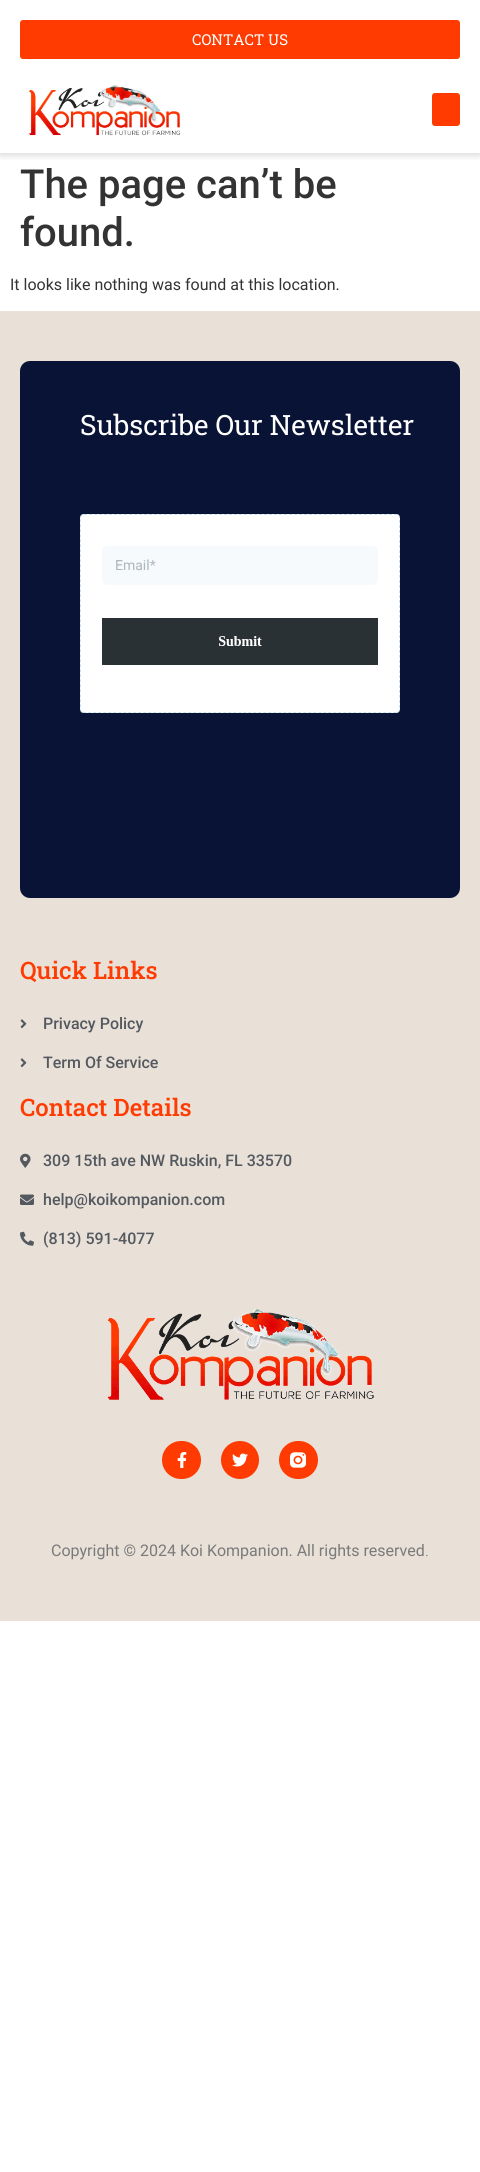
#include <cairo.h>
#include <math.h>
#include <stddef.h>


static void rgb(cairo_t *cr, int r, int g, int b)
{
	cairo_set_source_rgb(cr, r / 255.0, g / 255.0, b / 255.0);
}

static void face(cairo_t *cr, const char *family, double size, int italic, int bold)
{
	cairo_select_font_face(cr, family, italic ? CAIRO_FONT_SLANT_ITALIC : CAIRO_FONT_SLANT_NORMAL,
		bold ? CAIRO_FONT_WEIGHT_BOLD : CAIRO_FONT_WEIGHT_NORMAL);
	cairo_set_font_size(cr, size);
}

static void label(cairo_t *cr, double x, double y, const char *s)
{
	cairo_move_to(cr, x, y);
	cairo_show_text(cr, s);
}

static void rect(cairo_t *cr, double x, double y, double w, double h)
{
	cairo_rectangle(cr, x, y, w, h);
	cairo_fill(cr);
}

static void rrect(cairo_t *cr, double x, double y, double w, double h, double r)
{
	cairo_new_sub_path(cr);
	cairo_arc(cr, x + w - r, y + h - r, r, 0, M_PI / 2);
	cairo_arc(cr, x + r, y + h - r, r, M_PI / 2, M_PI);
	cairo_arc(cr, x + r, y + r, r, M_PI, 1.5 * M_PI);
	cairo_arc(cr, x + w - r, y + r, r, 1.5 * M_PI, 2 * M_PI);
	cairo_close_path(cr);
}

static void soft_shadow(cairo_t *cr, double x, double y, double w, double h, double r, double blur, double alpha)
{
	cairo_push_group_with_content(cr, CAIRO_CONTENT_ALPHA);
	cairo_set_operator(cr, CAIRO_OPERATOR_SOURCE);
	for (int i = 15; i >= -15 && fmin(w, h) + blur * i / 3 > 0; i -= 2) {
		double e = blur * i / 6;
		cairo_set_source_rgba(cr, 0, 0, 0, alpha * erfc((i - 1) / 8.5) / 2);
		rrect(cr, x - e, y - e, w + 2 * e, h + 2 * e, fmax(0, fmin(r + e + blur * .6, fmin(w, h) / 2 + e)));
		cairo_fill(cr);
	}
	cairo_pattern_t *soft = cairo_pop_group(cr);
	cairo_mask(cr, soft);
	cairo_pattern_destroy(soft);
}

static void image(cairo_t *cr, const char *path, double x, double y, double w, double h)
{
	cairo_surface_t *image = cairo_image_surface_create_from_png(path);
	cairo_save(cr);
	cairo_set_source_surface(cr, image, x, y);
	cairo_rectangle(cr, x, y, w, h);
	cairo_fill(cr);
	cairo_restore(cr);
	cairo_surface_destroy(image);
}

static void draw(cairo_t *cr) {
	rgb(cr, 255, 255, 255);
	cairo_paint(cr);
	cairo_save(cr);
	cairo_rectangle(cr, 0, 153, 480, 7);
	cairo_clip(cr);
	rgb(cr, 0, 0, 0);
	soft_shadow(cr, 0, 0, 480, 153, 0, 5, 0.24);
	cairo_restore(cr);
	rgb(cr, 255, 59, 2);
	rrect(cr, 20, 20, 440, 39, 3);
	cairo_fill(cr);
	face(cr, "Roboto Slab", 15, 0, 0);
	rgb(cr, 255, 255, 255);
	label(cr, 192, 45, "CONTACT US");
	image(cr, "image0.png", 28, 85, 152, 51);
	rgb(cr, 255, 59, 2);
	rrect(cr, 432, 93, 28, 33, 3);
	cairo_fill(cr);
	face(cr, "Roboto Medium", 40, 0, 0);
	rgb(cr, 51, 51, 51);
	label(cr, 20, 198, "The page can’t be");
	label(cr, 20, 246, "found.");
	face(cr, "Roboto", 16, 0, 0);
	label(cr, 10, 290, "It looks like nothing was found at this location.");
	rgb(cr, 233, 224, 216);
	rect(cr, 0, 311, 480, 1310);
	rgb(cr, 8, 19, 54);
	rrect(cr, 20, 361, 440, 537, 10);
	cairo_fill(cr);
	face(cr, "Roboto Slab", 28, 0, 0);
	rgb(cr, 255, 255, 255);
	label(cr, 80, 435, "Subscribe Our Newsletter");
	image(cr, "image1.png", 80, 514, 320, 199);
	face(cr, "Roboto Slab Medium", 24, 0, 0);
	rgb(cr, 255, 59, 2);
	label(cr, 20, 979, "Quick Links");
	image(cr, "image2.png", 20, 1019, 7, 10);
	face(cr, "Roboto Medium", 16, 0, 0);
	rgb(cr, 84, 89, 95);
	label(cr, 43, 1029, "Privacy Policy");
	image(cr, "image2.png", 20, 1058, 7, 10);
	label(cr, 43, 1068, "Term Of Service");
	face(cr, "Roboto Slab Medium", 24, 0, 0);
	rgb(cr, 255, 59, 2);
	label(cr, 20, 1116, "Contact Details");
	image(cr, "image3.png", 20, 1153, 11, 15);
	face(cr, "Roboto Medium", 16, 0, 0);
	rgb(cr, 84, 89, 95);
	label(cr, 43, 1166, "309 15th ave NW Ruskin, FL 33570");
	image(cr, "image4.png", 20, 1194, 14, 11);
	label(cr, 43, 1205, "help@koikompanion.com");
	image(cr, "image5.png", 20, 1231, 14, 15);
	label(cr, 43, 1244, "(813) 591-4077");
	image(cr, "image6.png", 107, 1308, 267, 92);
	rgb(cr, 255, 59, 2);
	rrect(cr, 162, 1441, 39, 38, 19);
	cairo_fill(cr);
	image(cr, "image7.png", 177, 1452, 10, 16);
	cairo_arc(cr, 240, 1460, 19, 0, 2 * M_PI);
	cairo_fill(cr);
	image(cr, "image8.png", 232, 1453, 16, 14);
	rrect(cr, 279, 1441, 39, 38, 19);
	cairo_fill(cr);
	image(cr, "image9.png", 290, 1452, 16, 16);
	face(cr, "Roboto", 16, 0, 0);
	rgb(cr, 122, 122, 122);
	label(cr, 51, 1556, "Copyright © 2024 Koi Kompanion. All rights reserved");
	face(cr, "Roboto Light", 16, 0, 0);
	label(cr, 425, 1556, ".");
}

int main(void) {
	cairo_surface_t *surface = cairo_image_surface_create(CAIRO_FORMAT_RGB24, 480, 2172);
	cairo_t *cr = cairo_create(surface);
	cairo_font_options_t *options = cairo_font_options_create();
	cairo_font_options_set_hint_metrics(options, CAIRO_HINT_METRICS_OFF);
	cairo_font_options_set_hint_style(options, CAIRO_HINT_STYLE_NONE);
	cairo_set_font_options(cr, options);
	cairo_set_miter_limit(cr, 4);
	draw(cr);
	cairo_surface_write_to_png(surface, "render.png");
	cairo_font_options_destroy(options);
	cairo_destroy(cr);
	cairo_surface_destroy(surface);
	return 0;
}
